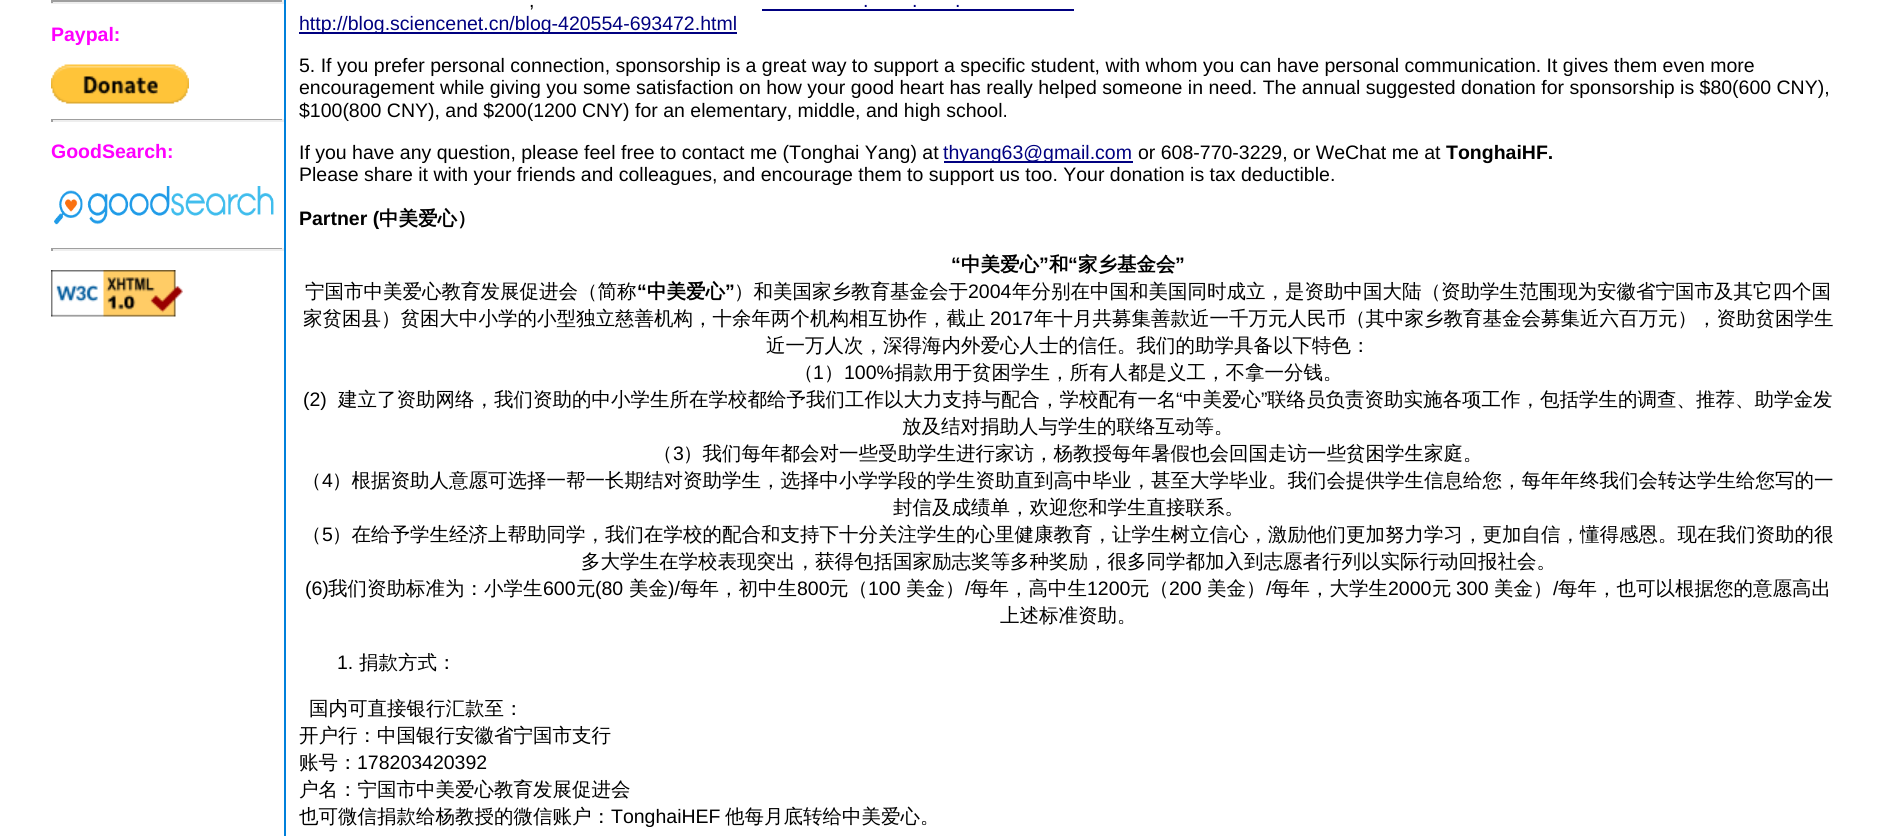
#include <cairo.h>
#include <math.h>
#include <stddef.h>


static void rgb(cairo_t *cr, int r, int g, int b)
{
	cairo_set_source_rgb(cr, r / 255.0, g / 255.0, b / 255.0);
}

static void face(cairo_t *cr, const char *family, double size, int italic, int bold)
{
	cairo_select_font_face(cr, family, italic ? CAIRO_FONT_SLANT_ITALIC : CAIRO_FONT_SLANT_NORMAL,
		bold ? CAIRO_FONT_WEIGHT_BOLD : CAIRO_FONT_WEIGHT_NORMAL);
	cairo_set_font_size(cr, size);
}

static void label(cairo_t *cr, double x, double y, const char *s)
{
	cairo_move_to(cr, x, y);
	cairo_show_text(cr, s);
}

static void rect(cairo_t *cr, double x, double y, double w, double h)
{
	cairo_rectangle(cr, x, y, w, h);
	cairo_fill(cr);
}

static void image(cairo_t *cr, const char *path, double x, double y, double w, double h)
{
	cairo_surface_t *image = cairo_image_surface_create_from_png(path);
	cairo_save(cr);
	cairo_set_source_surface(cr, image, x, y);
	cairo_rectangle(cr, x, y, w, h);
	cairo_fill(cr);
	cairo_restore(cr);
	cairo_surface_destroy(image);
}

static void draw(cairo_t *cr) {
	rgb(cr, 255, 255, 255);
	cairo_paint(cr);
	rgb(cr, 159, 159, 159);
	rect(cr, 51, 0, 233, 2);
	rgb(cr, 238, 238, 238);
	rect(cr, 282, 0, 2, 3);
	rect(cr, 51, 2, 233, 2);
	rgb(cr, 159, 159, 159);
	rect(cr, 51, 0, 2, 3);
	face(cr, "Liberation Sans", 19.5, 0, 1);
	rgb(cr, 255, 0, 255);
	label(cr, 51, 41, "Paypal:");
	image(cr, "image0.png", 51, 64, 138, 40);
	rgb(cr, 159, 159, 159);
	rect(cr, 51, 119, 233, 1);
	rgb(cr, 238, 238, 238);
	rect(cr, 282, 119, 2, 3);
	rect(cr, 51, 120, 233, 2);
	rgb(cr, 159, 159, 159);
	rect(cr, 51, 119, 2, 3);
	rgb(cr, 255, 0, 255);
	label(cr, 51, 158, "GoodSearch:");
	image(cr, "image1.png", 54, 186, 220, 39);
	rgb(cr, 159, 159, 159);
	rect(cr, 51, 248, 233, 1);
	rgb(cr, 238, 238, 238);
	rect(cr, 282, 248, 2, 3);
	rect(cr, 51, 249, 233, 2);
	rgb(cr, 159, 159, 159);
	rect(cr, 51, 248, 2, 3);
	image(cr, "image2.png", 51, 270, 132, 47);
	rgb(cr, 0, 128, 219);
	rect(cr, 284, 0, 2, 836);
	face(cr, "Liberation Sans", 19.5, 0, 0);
	rgb(cr, 0, 0, 0);
	label(cr, 529, 7, ",");
	rgb(cr, 0, 0, 128);
	label(cr, 863, 7, ".");
	rect(cr, 762, 9, 312, 2);
	label(cr, 912, 7, ".");
	label(cr, 955, 7, ".");
	rect(cr, 299, 32, 438, 2);
	label(cr, 299, 30, "http://blog.sciencenet.cn/blog-420554-693472.html");
	rgb(cr, 0, 0, 0);
	label(cr, 299, 72, "5. If you prefer personal connection, sponsorship is a great way to support a specific student, with whom you can have personal communication. It gives them even more");
	label(cr, 299, 94, "encouragement while giving you some satisfaction on how your good heart has really helped someone in need. The annual suggested donation for sponsorship is $80(600 CNY),");
	label(cr, 299, 117, "$100(800 CNY), and $200(1200 CNY) for an elementary, middle, and high school.");
	label(cr, 299, 159, "If you have any question, please feel free to contact me (Tonghai Yang) at");
	rgb(cr, 0, 0, 128);
	rect(cr, 944, 161, 189, 2);
	label(cr, 943, 159, "thyang63@gmail.com");
	rgb(cr, 0, 0, 0);
	label(cr, 1138, 159, "or 608-770-3229, or WeChat me at");
	face(cr, "Liberation Sans", 19.5, 0, 1);
	label(cr, 1446, 159, "TonghaiHF.");
	face(cr, "Liberation Sans", 19.5, 0, 0);
	label(cr, 299, 181, "Please share it with your friends and colleagues, and encourage them to support us too. Your donation is tax deductible.");
	face(cr, "Liberation Sans", 19.5, 0, 1);
	label(cr, 299, 225, "Partner (");
	face(cr, "WenQuanYi Zen Hei", 19.5, 0, 1);
	label(cr, 379, 225, "中美爱心）");
	face(cr, "Liberation Sans", 19.5, 0, 1);
	label(cr, 951, 271, "“");
	face(cr, "WenQuanYi Zen Hei", 19.5, 0, 1);
	label(cr, 961, 271, "中美爱心");
	face(cr, "Liberation Sans", 19.5, 0, 1);
	label(cr, 1039, 271, "”");
	face(cr, "WenQuanYi Zen Hei", 19.5, 0, 1);
	label(cr, 1049, 271, "和");
	face(cr, "Liberation Sans", 19.5, 0, 1);
	label(cr, 1068, 271, "“");
	face(cr, "WenQuanYi Zen Hei", 19.5, 0, 1);
	label(cr, 1078, 271, "家乡基金会");
	face(cr, "Liberation Sans", 19.5, 0, 1);
	label(cr, 1175, 271, "”");
	face(cr, "WenQuanYi Zen Hei Medium", 19.5, 0, 0);
	label(cr, 305, 298, "宁国市中美爱心教育发展促进会（简称");
	face(cr, "Liberation Sans", 19.5, 0, 1);
	label(cr, 637, 298, "“");
	face(cr, "WenQuanYi Zen Hei", 19.5, 0, 1);
	label(cr, 647, 298, "中美爱心");
	face(cr, "Liberation Sans", 19.5, 0, 1);
	label(cr, 725, 298, "”");
	face(cr, "WenQuanYi Zen Hei Medium", 19.5, 0, 0);
	label(cr, 734, 298, "）和美国家乡教育基金会于");
	face(cr, "Liberation Sans", 19.5, 0, 0);
	label(cr, 968, 298, "2004");
	face(cr, "WenQuanYi Zen Hei Medium", 19.5, 0, 0);
	label(cr, 1012, 298, "年分别在中国和美国同时成立，是资助中国大陆（资助学生范围现为安徽省宁国市及其它四个国");
	label(cr, 303, 325, "家贫困县）贫困大中小学的小型独立慈善机构，十余年两个机构相互协作，截止");
	face(cr, "Liberation Sans", 19.5, 0, 0);
	label(cr, 990, 325, "2017");
	face(cr, "WenQuanYi Zen Hei Medium", 19.5, 0, 0);
	label(cr, 1034, 325, "年十月共募集善款近一千万元人民币（其中家乡教育基金会募集近六百万元），资助贫困学生");
	label(cr, 766, 352, "近一万人次，深得海内外爱心人士的信任。我们的助学具备以下特色：");
	label(cr, 794, 379, "（");
	face(cr, "Liberation Sans", 19.5, 0, 0);
	label(cr, 813, 379, "1");
	face(cr, "WenQuanYi Zen Hei Medium", 19.5, 0, 0);
	label(cr, 824, 379, "）");
	face(cr, "Liberation Sans", 19.5, 0, 0);
	label(cr, 844, 379, "100%");
	face(cr, "WenQuanYi Zen Hei Medium", 19.5, 0, 0);
	label(cr, 894, 379, "捐款用于贫困学生，所有人都是义工，不拿一分钱。");
	face(cr, "Liberation Sans", 19.5, 0, 0);
	label(cr, 303, 406, "(2)");
	face(cr, "WenQuanYi Zen Hei Medium", 19.5, 0, 0);
	label(cr, 338, 406, "建立了资助网络，我们资助的中小学生所在学校都给予我们工作以大力支持与配合，学校配有一名");
	face(cr, "Liberation Sans", 19.5, 0, 0);
	label(cr, 1176, 406, "“");
	face(cr, "WenQuanYi Zen Hei Medium", 19.5, 0, 0);
	label(cr, 1183, 406, "中美爱心");
	face(cr, "Liberation Sans", 19.5, 0, 0);
	label(cr, 1261, 406, "”");
	face(cr, "WenQuanYi Zen Hei Medium", 19.5, 0, 0);
	label(cr, 1267, 406, "联络员负责资助实施各项工作，包括学生的调查、推荐、助学金发");
	label(cr, 902, 433, "放及结对捐助人与学生的联络互动等。");
	label(cr, 653, 460, "（");
	face(cr, "Liberation Sans", 19.5, 0, 0);
	label(cr, 673, 460, "3");
	face(cr, "WenQuanYi Zen Hei Medium", 19.5, 0, 0);
	label(cr, 683, 460, "）我们每年都会对一些受助学生进行家访，杨教授每年暑假也会回国走访一些贫困学生家庭。");
	label(cr, 302, 487, "（");
	face(cr, "Liberation Sans", 19.5, 0, 0);
	label(cr, 322, 487, "4");
	face(cr, "WenQuanYi Zen Hei Medium", 19.5, 0, 0);
	label(cr, 332, 487, "）根据资助人意愿可选择一帮一长期结对资助学生，选择中小学学段的学生资助直到高中毕业，甚至大学毕业。我们会提供学生信息给您，每年年终我们会转达学生给您写的一");
	label(cr, 893, 514, "封信及成绩单，欢迎您和学生直接联系。");
	label(cr, 302, 541, "（");
	face(cr, "Liberation Sans", 19.5, 0, 0);
	label(cr, 322, 541, "5");
	face(cr, "WenQuanYi Zen Hei Medium", 19.5, 0, 0);
	label(cr, 332, 541, "）在给予学生经济上帮助同学，我们在学校的配合和支持下十分关注学生的心里健康教育，让学生树立信心，激励他们更加努力学习，更加自信，懂得感恩。现在我们资助的很");
	label(cr, 581, 568, "多大学生在学校表现突出，获得包括国家励志奖等多种奖励，很多同学都加入到志愿者行列以实际行动回报社会。");
	face(cr, "Liberation Sans", 19.5, 0, 0);
	label(cr, 305, 595, "(6)");
	face(cr, "WenQuanYi Zen Hei Medium", 19.5, 0, 0);
	label(cr, 328, 595, "我们资助标准为：小学生");
	face(cr, "Liberation Sans", 19.5, 0, 0);
	label(cr, 543, 595, "600");
	face(cr, "WenQuanYi Zen Hei Medium", 19.5, 0, 0);
	label(cr, 576, 595, "元");
	face(cr, "Liberation Sans", 19.5, 0, 0);
	label(cr, 595, 595, "(80");
	face(cr, "WenQuanYi Zen Hei Medium", 19.5, 0, 0);
	label(cr, 629, 595, "美金");
	face(cr, "Liberation Sans", 19.5, 0, 0);
	label(cr, 668, 595, ")/");
	face(cr, "WenQuanYi Zen Hei Medium", 19.5, 0, 0);
	label(cr, 680, 595, "每年，初中生");
	face(cr, "Liberation Sans", 19.5, 0, 0);
	label(cr, 797, 595, "800");
	face(cr, "WenQuanYi Zen Hei Medium", 19.5, 0, 0);
	label(cr, 829, 595, "元（");
	face(cr, "Liberation Sans", 19.5, 0, 0);
	label(cr, 868, 595, "100");
	face(cr, "WenQuanYi Zen Hei Medium", 19.5, 0, 0);
	label(cr, 906, 595, "美金）");
	face(cr, "Liberation Sans", 19.5, 0, 0);
	label(cr, 965, 595, "/");
	face(cr, "WenQuanYi Zen Hei Medium", 19.5, 0, 0);
	label(cr, 970, 595, "每年，高中生");
	face(cr, "Liberation Sans", 19.5, 0, 0);
	label(cr, 1087, 595, "1200");
	face(cr, "WenQuanYi Zen Hei Medium", 19.5, 0, 0);
	label(cr, 1130, 595, "元（");
	face(cr, "Liberation Sans", 19.5, 0, 0);
	label(cr, 1169, 595, "200");
	face(cr, "WenQuanYi Zen Hei Medium", 19.5, 0, 0);
	label(cr, 1207, 595, "美金）");
	face(cr, "Liberation Sans", 19.5, 0, 0);
	label(cr, 1266, 595, "/");
	face(cr, "WenQuanYi Zen Hei Medium", 19.5, 0, 0);
	label(cr, 1271, 595, "每年，大学生");
	face(cr, "Liberation Sans", 19.5, 0, 0);
	label(cr, 1388, 595, "2000");
	face(cr, "WenQuanYi Zen Hei Medium", 19.5, 0, 0);
	label(cr, 1432, 595, "元");
	face(cr, "Liberation Sans", 19.5, 0, 0);
	label(cr, 1456, 595, "300");
	face(cr, "WenQuanYi Zen Hei Medium", 19.5, 0, 0);
	label(cr, 1494, 595, "美金）");
	face(cr, "Liberation Sans", 19.5, 0, 0);
	label(cr, 1553, 595, "/");
	face(cr, "WenQuanYi Zen Hei Medium", 19.5, 0, 0);
	label(cr, 1558, 595, "每年，也可以根据您的意愿高出");
	label(cr, 1000, 622, "上述标准资助。");
	face(cr, "Liberation Sans", 19.5, 0, 0);
	label(cr, 337, 669, "1.");
	face(cr, "WenQuanYi Zen Hei Medium", 19.5, 0, 0);
	label(cr, 359, 669, "捐款方式：");
	label(cr, 309, 715, "国内可直接银行汇款至：");
	label(cr, 299, 742, "开户行：中国银行安徽省宁国市支行");
	label(cr, 299, 769, "账号：");
	face(cr, "Liberation Sans", 19.5, 0, 0);
	label(cr, 357, 769, "178203420392");
	face(cr, "WenQuanYi Zen Hei Medium", 19.5, 0, 0);
	label(cr, 299, 796, "户名：宁国市中美爱心教育发展促进会");
	label(cr, 299, 823, "也可微信捐款给杨教授的微信账户：");
	face(cr, "Liberation Sans", 19.5, 0, 0);
	label(cr, 611, 823, "TonghaiHEF");
	face(cr, "WenQuanYi Zen Hei Medium", 19.5, 0, 0);
	label(cr, 725, 823, "他每月底转给中美爱心。");
}

int main(void) {
	cairo_surface_t *surface = cairo_image_surface_create(CAIRO_FORMAT_RGB24, 1902, 836);
	cairo_t *cr = cairo_create(surface);
	cairo_font_options_t *options = cairo_font_options_create();
	cairo_font_options_set_hint_metrics(options, CAIRO_HINT_METRICS_OFF);
	cairo_font_options_set_hint_style(options, CAIRO_HINT_STYLE_NONE);
	cairo_set_font_options(cr, options);
	cairo_set_miter_limit(cr, 4);
	draw(cr);
	cairo_surface_write_to_png(surface, "render.png");
	cairo_font_options_destroy(options);
	cairo_destroy(cr);
	cairo_surface_destroy(surface);
	return 0;
}
